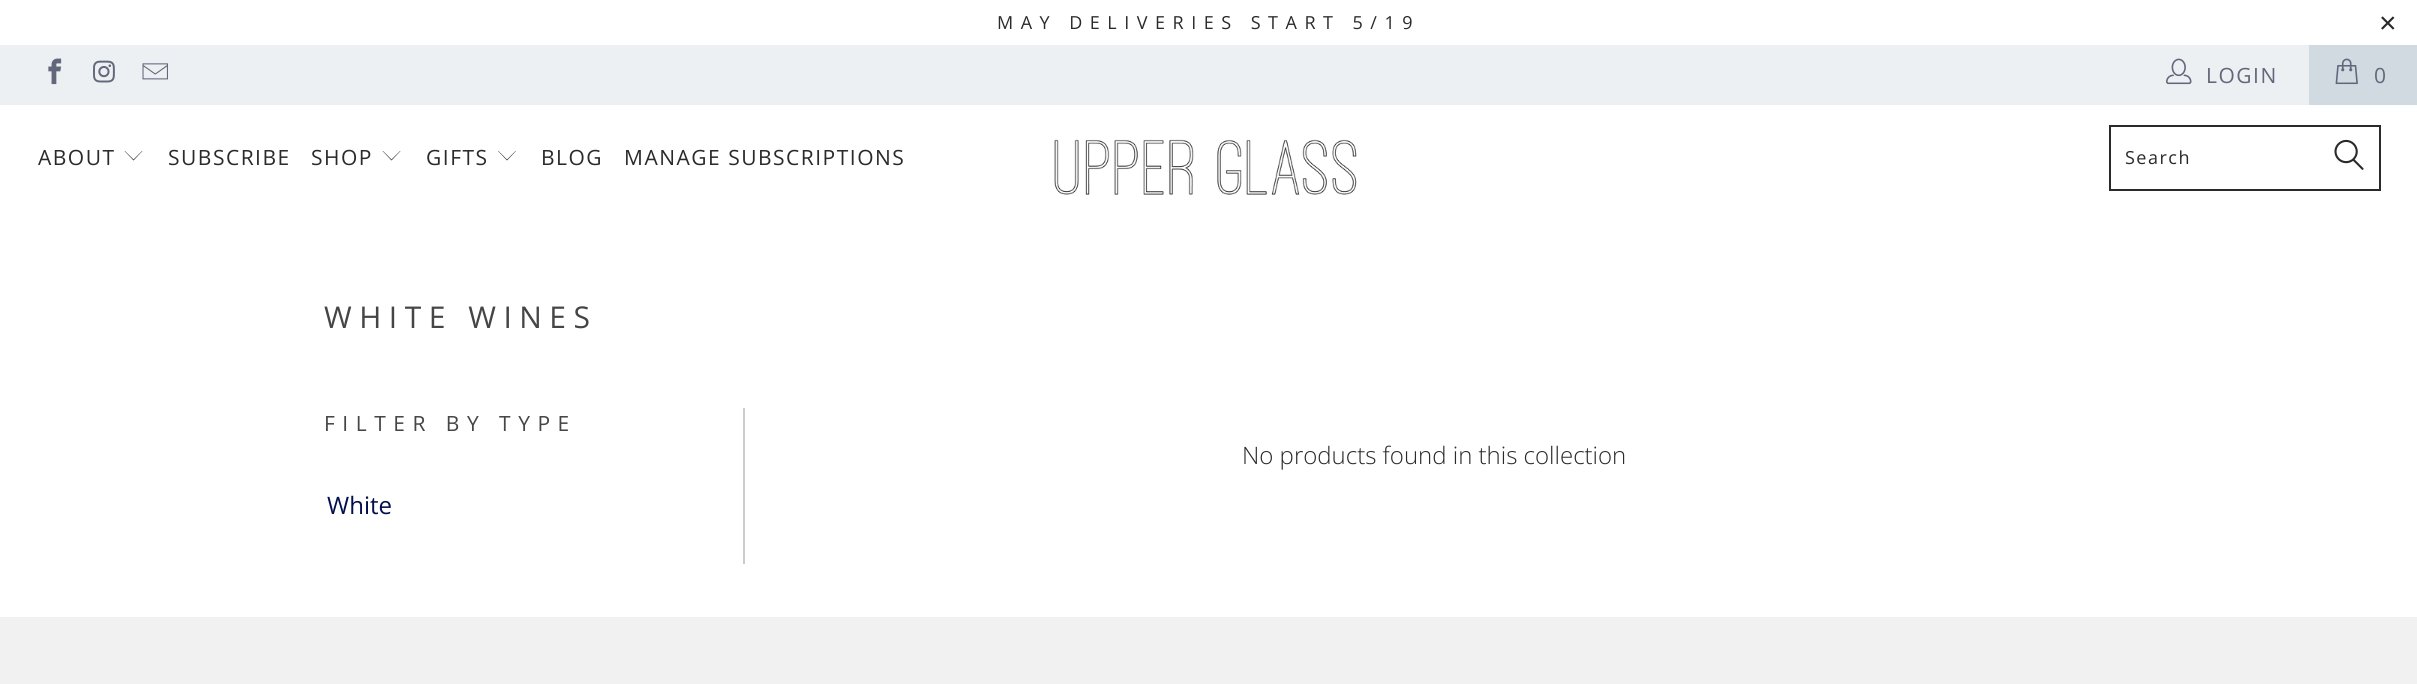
#include <cairo.h>
#include <math.h>
#include <stddef.h>


static void rgb(cairo_t *cr, int r, int g, int b)
{
	cairo_set_source_rgb(cr, r / 255.0, g / 255.0, b / 255.0);
}

static void face(cairo_t *cr, const char *family, double size, int italic, int bold)
{
	cairo_select_font_face(cr, family, italic ? CAIRO_FONT_SLANT_ITALIC : CAIRO_FONT_SLANT_NORMAL,
		bold ? CAIRO_FONT_WEIGHT_BOLD : CAIRO_FONT_WEIGHT_NORMAL);
	cairo_set_font_size(cr, size);
}

static void label(cairo_t *cr, double x, double y, const char *s)
{
	cairo_move_to(cr, x, y);
	cairo_show_text(cr, s);
}

static void tracked(cairo_t *cr, double x, double y, const char *s, double letter, double word)
{
	cairo_move_to(cr, x, y);
	while (*s) {
		char ch[5] = {0};
		int n = 0;
		do ch[n++] = *s++; while ((*s & 0xC0) == 0x80);
		cairo_show_text(cr, ch);
		cairo_rel_move_to(cr, letter + word * (*ch == ' '), 0);
	}
}

static void rect(cairo_t *cr, double x, double y, double w, double h)
{
	cairo_rectangle(cr, x, y, w, h);
	cairo_fill(cr);
}

static void image(cairo_t *cr, const char *path, double x, double y, double w, double h)
{
	cairo_surface_t *image = cairo_image_surface_create_from_png(path);
	cairo_save(cr);
	cairo_set_source_surface(cr, image, x, y);
	cairo_rectangle(cr, x, y, w, h);
	cairo_fill(cr);
	cairo_restore(cr);
	cairo_surface_destroy(image);
}

static void draw(cairo_t *cr) {
	rgb(cr, 255, 255, 255);
	cairo_paint(cr);
	face(cr, "Open Sans", 18, 0, 0);
	rgb(cr, 43, 42, 42);
	tracked(cr, 997, 29, "MAY DELIVERIES START 5/19", 7.5, 0);
	face(cr, "Liberation Sans", 30, 0, 0);
	tracked(cr, 2379, 33, "×", 7.5, 0);
	rgb(cr, 236, 240, 243);
	rect(cr, 0, 45, 2309, 60);
	image(cr, "image0.png", 48, 58, 14, 27);
	image(cr, "image1.png", 93, 60, 22, 23);
	image(cr, "image2.png", 142, 63, 26, 17);
	image(cr, "image3.png", 2166, 58, 26, 27);
	face(cr, "Open Sans", 21, 0, 0);
	rgb(cr, 98, 103, 123);
	tracked(cr, 2206, 83, "LOGIN", 1.5, 0);
	rgb(cr, 209, 217, 225);
	rect(cr, 2309, 45, 108, 60);
	image(cr, "image4.png", 2335, 58, 23, 27);
	rgb(cr, 98, 103, 123);
	tracked(cr, 2374, 83, "0", 1.5, 0);
	rgb(cr, 43, 42, 42);
	tracked(cr, 38, 165, "ABOUT", 1.5, 0);
	cairo_new_path(cr);
	cairo_move_to(cr, 133.5, 160.5);
	cairo_line_to(cr, 124.5, 151);
	cairo_line_to(cr, 125, 151);
	cairo_line_to(cr, 133.5, 159.5);
	cairo_line_to(cr, 142, 151);
	cairo_line_to(cr, 142.5, 151);
	cairo_close_path(cr);
	cairo_fill(cr);
	tracked(cr, 168, 165, "SUBSCRIBE", 1.5, 0);
	tracked(cr, 311, 165, "SHOP", 1.5, 0);
	cairo_new_path(cr);
	cairo_move_to(cr, 391.5, 160.5);
	cairo_line_to(cr, 382.5, 151);
	cairo_line_to(cr, 383, 151);
	cairo_line_to(cr, 391.5, 159.5);
	cairo_line_to(cr, 400, 151);
	cairo_line_to(cr, 400.5, 151);
	cairo_close_path(cr);
	cairo_fill(cr);
	tracked(cr, 426, 165, "GIFTS", 1.5, 0);
	cairo_new_path(cr);
	cairo_move_to(cr, 507, 160.5);
	cairo_line_to(cr, 498, 151);
	cairo_line_to(cr, 498.5, 151);
	cairo_line_to(cr, 507, 159.5);
	cairo_line_to(cr, 515.5, 151);
	cairo_line_to(cr, 516, 151);
	cairo_close_path(cr);
	cairo_fill(cr);
	tracked(cr, 541, 165, "BLOG", 1.5, 0);
	tracked(cr, 624, 165, "MANAGE SUBSCRIPTIONS", 1.5, 0);
	image(cr, "image5.png", 1054, 139, 303, 56);
	cairo_rectangle(cr, 2110, 126, 270, 64);
	cairo_stroke(cr);
	face(cr, "Open Sans", 18, 0, 0);
	tracked(cr, 2125, 164, "Search", 1.5, 0);
	image(cr, "image6.png", 2334, 139, 30, 31);
	face(cr, "Open Sans", 30, 0, 0);
	rgb(cr, 69, 69, 69);
	tracked(cr, 324, 328, "WHITE WINES", 7.5, 0);
	rgb(cr, 204, 204, 204);
	rect(cr, 743, 408, 2, 156);
	face(cr, "Open Sans", 21, 0, 0);
	rgb(cr, 69, 69, 69);
	tracked(cr, 324, 431, "FILTER BY TYPE", 7.5, 0);
	face(cr, "Open Sans", 24, 0, 0);
	rgb(cr, 2, 15, 76);
	label(cr, 327, 514, "White");
	face(cr, "Open Sans Light", 24, 0, 0);
	rgb(cr, 43, 42, 42);
	label(cr, 1242, 464, "No products found in this collection");
	rgb(cr, 242, 241, 241);
	rect(cr, 0, 617, 2417, 67);
}

int main(void) {
	cairo_surface_t *surface = cairo_image_surface_create(CAIRO_FORMAT_RGB24, 2417, 684);
	cairo_t *cr = cairo_create(surface);
	cairo_font_options_t *options = cairo_font_options_create();
	cairo_font_options_set_hint_metrics(options, CAIRO_HINT_METRICS_OFF);
	cairo_font_options_set_hint_style(options, CAIRO_HINT_STYLE_NONE);
	cairo_set_font_options(cr, options);
	cairo_set_miter_limit(cr, 4);
	draw(cr);
	cairo_surface_write_to_png(surface, "render.png");
	cairo_font_options_destroy(options);
	cairo_destroy(cr);
	cairo_surface_destroy(surface);
	return 0;
}
